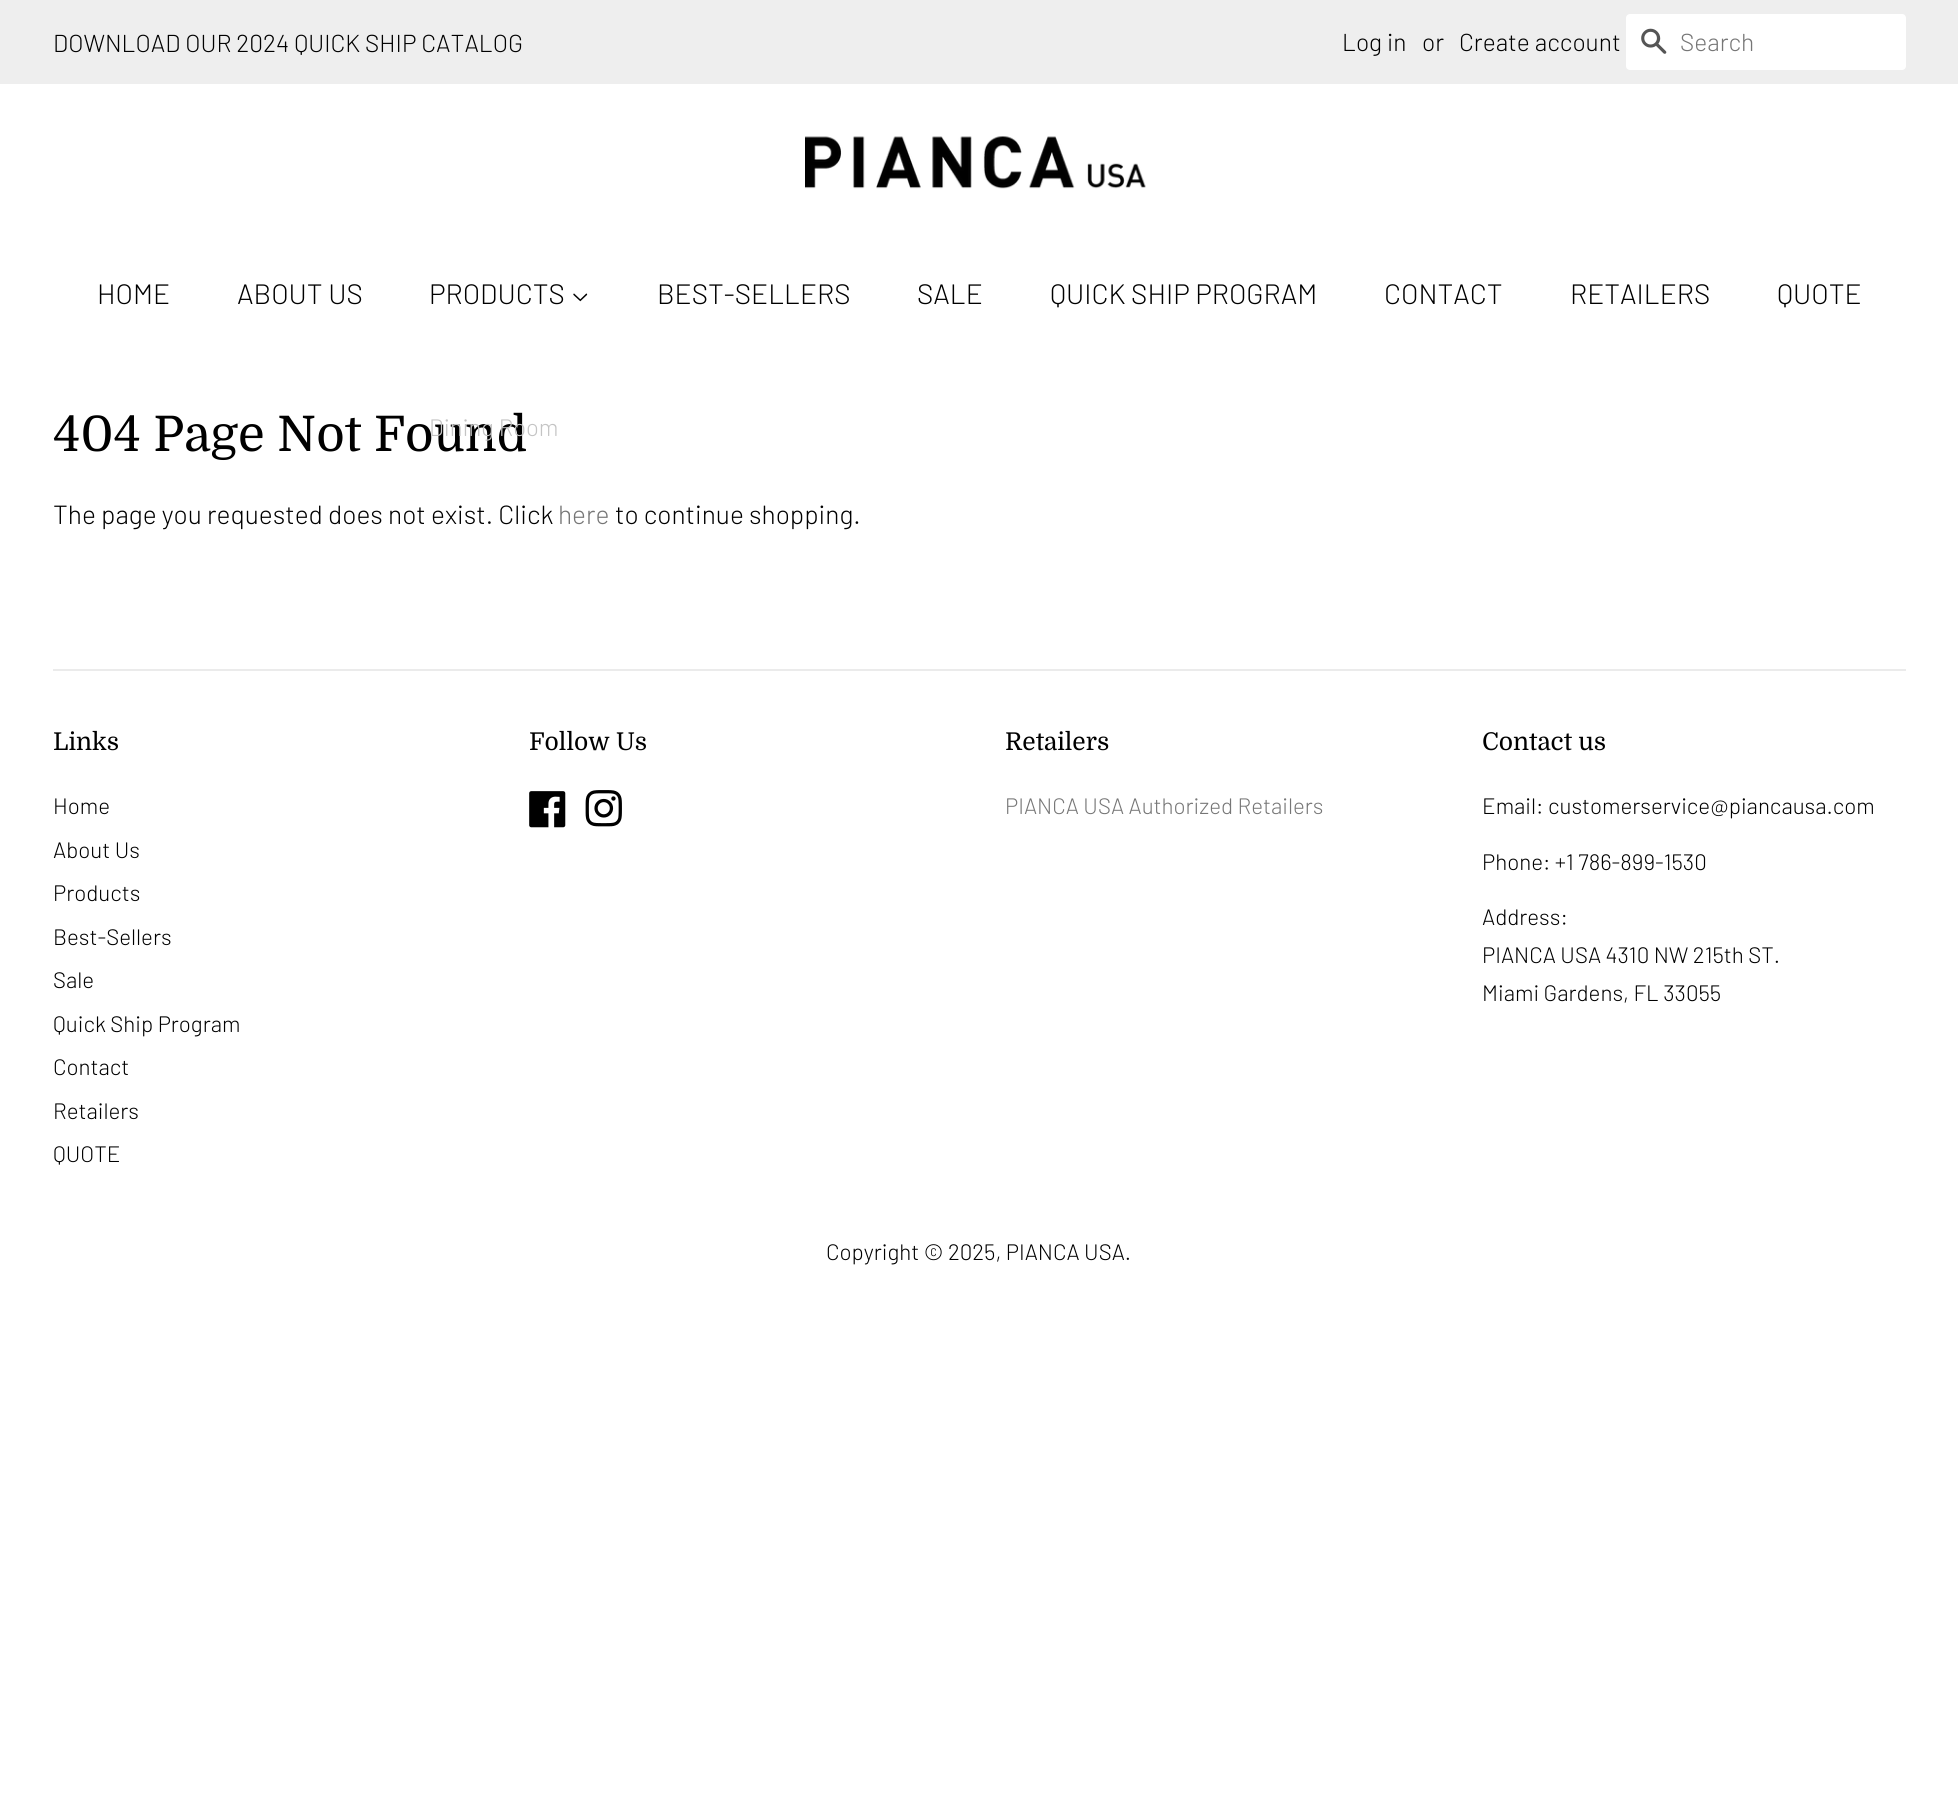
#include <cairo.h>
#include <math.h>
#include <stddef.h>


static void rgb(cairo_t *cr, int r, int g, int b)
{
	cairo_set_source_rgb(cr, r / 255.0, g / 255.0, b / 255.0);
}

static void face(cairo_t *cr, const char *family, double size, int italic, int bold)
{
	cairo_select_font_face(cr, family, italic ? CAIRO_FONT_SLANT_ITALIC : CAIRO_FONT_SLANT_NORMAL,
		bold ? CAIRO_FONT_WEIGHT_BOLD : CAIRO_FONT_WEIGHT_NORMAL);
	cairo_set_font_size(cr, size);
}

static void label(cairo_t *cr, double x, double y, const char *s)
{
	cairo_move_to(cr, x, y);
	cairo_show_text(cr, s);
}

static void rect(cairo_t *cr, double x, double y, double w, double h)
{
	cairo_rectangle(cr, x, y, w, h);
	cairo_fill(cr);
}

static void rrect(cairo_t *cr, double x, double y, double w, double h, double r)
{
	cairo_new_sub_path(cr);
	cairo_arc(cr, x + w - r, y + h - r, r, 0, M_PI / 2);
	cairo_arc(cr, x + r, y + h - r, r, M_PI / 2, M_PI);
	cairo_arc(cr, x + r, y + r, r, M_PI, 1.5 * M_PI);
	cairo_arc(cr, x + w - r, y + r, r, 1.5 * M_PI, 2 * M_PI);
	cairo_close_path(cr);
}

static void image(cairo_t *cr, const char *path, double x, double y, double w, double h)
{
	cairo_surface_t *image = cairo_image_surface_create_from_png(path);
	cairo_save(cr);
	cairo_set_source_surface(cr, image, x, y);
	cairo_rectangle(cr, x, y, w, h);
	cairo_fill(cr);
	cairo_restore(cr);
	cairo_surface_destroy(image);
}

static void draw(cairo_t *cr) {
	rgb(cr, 255, 255, 255);
	cairo_paint(cr);
	rgb(cr, 238, 238, 238);
	rect(cr, 0, 0, 1958, 84);
	face(cr, "Barlow Light", 24.5, 0, 0);
	rgb(cr, 0, 0, 0);
	label(cr, 53, 52, "DOWNLOAD OUR 2024 QUICK SHIP CATALOG");
	label(cr, 1342, 51, "Log in");
	label(cr, 1422, 51, "or");
	label(cr, 1459, 51, "Create account");
	rgb(cr, 255, 255, 255);
	rrect(cr, 1626, 14, 280, 56, 4);
	cairo_fill(cr);
	image(cr, "image0.png", 1641, 28, 26, 26);
	rgb(cr, 118, 118, 118);
	label(cr, 1680, 51, "Search");
	image(cr, "image1.png", 805, 136, 341, 53);
	face(cr, "Barlow Light", 28, 0, 0);
	rgb(cr, 0, 0, 0);
	label(cr, 97, 304, "HOME");
	label(cr, 237, 304, "ABOUT US");
	label(cr, 429, 304, "PRODUCTS");
	image(cr, "image2.png", 573, 293, 15, 9);
	face(cr, "Domine", 49, 0, 0);
	label(cr, 53, 451, "404 Page Not Found");
	face(cr, "Barlow Light", 23.75, 0, 0);
	rgb(cr, 196, 196, 196);
	label(cr, 429, 436, "Dining Room");
	face(cr, "Barlow Light", 28, 0, 0);
	rgb(cr, 0, 0, 0);
	label(cr, 657, 304, "BEST-SELLERS");
	label(cr, 917, 304, "SALE");
	label(cr, 1050, 304, "QUICK SHIP PROGRAM");
	label(cr, 1384, 304, "CONTACT");
	label(cr, 1570, 304, "RETAILERS");
	label(cr, 1777, 304, "QUOTE");
	face(cr, "Barlow Light", 26.25, 0, 0);
	label(cr, 53, 524, "The page you requested does not exist. Click");
	rgb(cr, 118, 118, 118);
	label(cr, 558, 524, "here");
	rgb(cr, 0, 0, 0);
	label(cr, 615, 524, "to continue shopping.");
	rgb(cr, 235, 235, 235);
	rect(cr, 53, 669, 1853, 2);
	face(cr, "Domine", 24.5, 0, 0);
	rgb(cr, 0, 0, 0);
	label(cr, 53, 750, "Links");
	face(cr, "Barlow Light", 22.3, 0, 0);
	label(cr, 53, 814, "Home");
	label(cr, 53, 858, "About Us");
	label(cr, 53, 901, "Products");
	label(cr, 53, 945, "Best-Sellers");
	label(cr, 53, 988, "Sale");
	label(cr, 53, 1032, "Quick Ship Program");
	label(cr, 53, 1075, "Contact");
	label(cr, 53, 1119, "Retailers");
	label(cr, 53, 1162, "QUOTE");
	face(cr, "Domine", 24.5, 0, 0);
	label(cr, 529, 750, "Follow Us");
	image(cr, "image3.png", 529, 791, 37, 37);
	image(cr, "image4.png", 585, 790, 37, 37);
	label(cr, 1005, 750, "Retailers");
	face(cr, "Barlow Light", 22.3, 0, 0);
	rgb(cr, 118, 118, 118);
	label(cr, 1005, 814, "PIANCA USA Authorized Retailers");
	face(cr, "Domine", 24.5, 0, 0);
	rgb(cr, 0, 0, 0);
	label(cr, 1482, 750, "Contact us");
	face(cr, "Barlow Light", 22.3, 0, 0);
	label(cr, 1482, 814, "Email: customerservice@piancausa.com");
	label(cr, 1482, 870, "Phone: +1 786-899-1530");
	label(cr, 1482, 925, "Address:");
	label(cr, 1482, 963, "PIANCA USA 4310 NW 215th ST.");
	label(cr, 1482, 1001, "Miami Gardens, FL 33055");
	label(cr, 826, 1260, "Copyright © 2025, PIANCA USA.");
}

int main(void) {
	cairo_surface_t *surface = cairo_image_surface_create(CAIRO_FORMAT_RGB24, 1958, 1811);
	cairo_t *cr = cairo_create(surface);
	cairo_font_options_t *options = cairo_font_options_create();
	cairo_font_options_set_hint_metrics(options, CAIRO_HINT_METRICS_OFF);
	cairo_font_options_set_hint_style(options, CAIRO_HINT_STYLE_NONE);
	cairo_set_font_options(cr, options);
	cairo_set_miter_limit(cr, 4);
	draw(cr);
	cairo_surface_write_to_png(surface, "render.png");
	cairo_font_options_destroy(options);
	cairo_destroy(cr);
	cairo_surface_destroy(surface);
	return 0;
}
